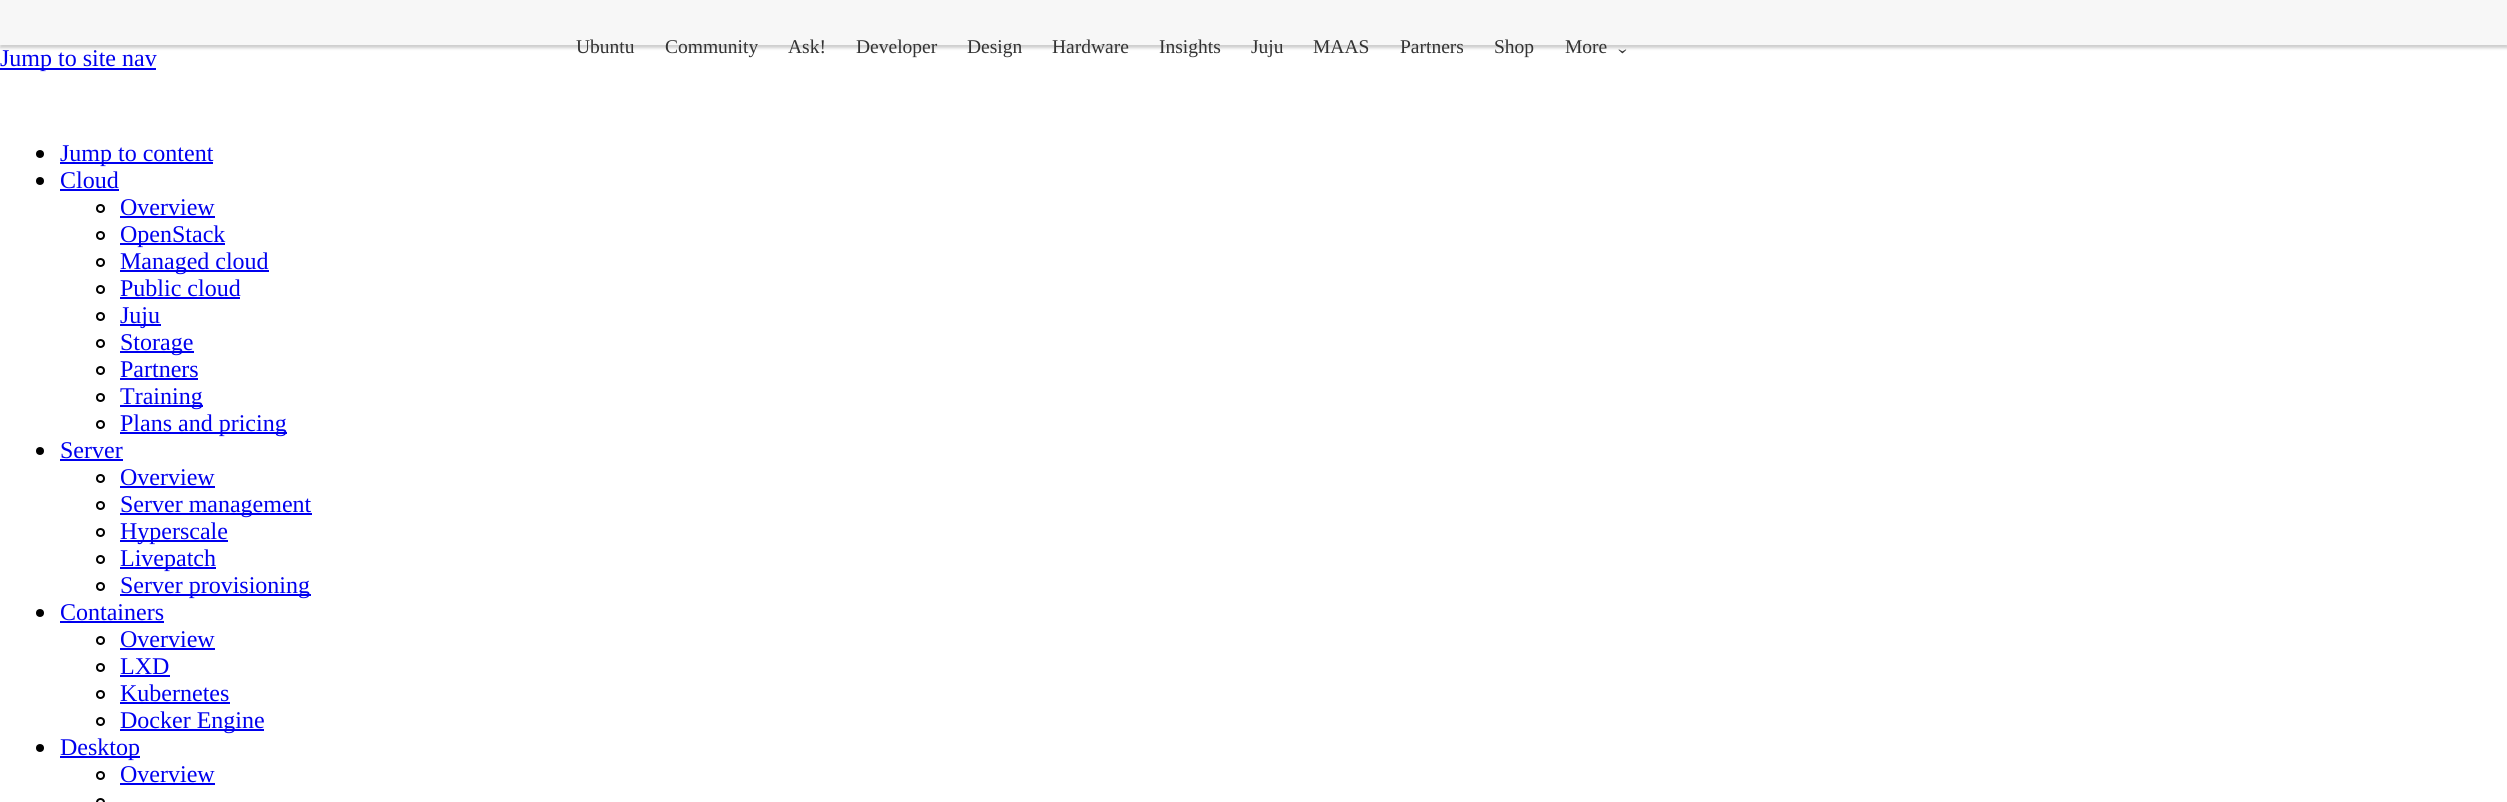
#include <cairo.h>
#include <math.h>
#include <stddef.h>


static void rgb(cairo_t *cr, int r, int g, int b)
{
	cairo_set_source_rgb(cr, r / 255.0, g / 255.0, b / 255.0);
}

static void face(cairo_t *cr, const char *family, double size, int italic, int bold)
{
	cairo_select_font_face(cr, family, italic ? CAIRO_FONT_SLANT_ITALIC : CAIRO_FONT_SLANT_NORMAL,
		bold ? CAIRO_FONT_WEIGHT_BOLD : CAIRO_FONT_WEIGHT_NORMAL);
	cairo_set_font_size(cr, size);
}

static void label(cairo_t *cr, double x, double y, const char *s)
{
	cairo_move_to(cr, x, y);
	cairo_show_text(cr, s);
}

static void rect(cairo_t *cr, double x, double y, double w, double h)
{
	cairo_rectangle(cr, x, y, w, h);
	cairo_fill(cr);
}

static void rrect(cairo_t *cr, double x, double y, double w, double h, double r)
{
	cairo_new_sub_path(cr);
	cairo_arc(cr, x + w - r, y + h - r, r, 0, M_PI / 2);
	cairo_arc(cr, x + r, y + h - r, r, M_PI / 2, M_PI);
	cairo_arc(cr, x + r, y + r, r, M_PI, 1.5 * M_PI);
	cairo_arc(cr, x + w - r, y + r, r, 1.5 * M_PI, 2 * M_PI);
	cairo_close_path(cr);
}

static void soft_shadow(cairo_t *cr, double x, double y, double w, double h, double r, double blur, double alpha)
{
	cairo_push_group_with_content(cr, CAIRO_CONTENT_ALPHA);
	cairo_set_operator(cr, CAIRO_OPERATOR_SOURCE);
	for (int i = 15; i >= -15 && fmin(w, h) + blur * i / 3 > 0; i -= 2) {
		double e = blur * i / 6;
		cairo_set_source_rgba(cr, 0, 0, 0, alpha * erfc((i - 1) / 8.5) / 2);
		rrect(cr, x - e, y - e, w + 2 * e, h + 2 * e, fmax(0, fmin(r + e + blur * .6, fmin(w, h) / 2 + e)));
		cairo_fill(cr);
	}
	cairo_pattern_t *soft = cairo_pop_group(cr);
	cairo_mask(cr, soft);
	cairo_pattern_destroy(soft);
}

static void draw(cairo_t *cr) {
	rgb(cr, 255, 255, 255);
	cairo_paint(cr);
	rgb(cr, 0, 0, 238);
	rect(cr, 0, 68, 156, 2);
	face(cr, "Liberation Serif", 24, 0, 0);
	label(cr, 0, 66, "Jump to site nav");
	rgb(cr, 0, 0, 0);
	cairo_new_path(cr);
	cairo_arc(cr, 40, 154, 4, 0, 2 * M_PI);
	cairo_fill(cr);
	rgb(cr, 0, 0, 238);
	rect(cr, 60, 162, 153, 2);
	label(cr, 60, 161, "Jump to content");
	rgb(cr, 0, 0, 0);
	cairo_new_path(cr);
	cairo_arc(cr, 40, 181, 4, 0, 2 * M_PI);
	cairo_fill(cr);
	rgb(cr, 0, 0, 238);
	label(cr, 60, 188, "Cloud");
	rect(cr, 60, 189, 59, 2);
	cairo_new_path(cr);
	cairo_arc(cr, 100.5, 208.5, 3.5, 0, 2 * M_PI);
	rgb(cr, 0, 0, 0);
	cairo_stroke(cr);
	rgb(cr, 0, 0, 238);
	label(cr, 120, 215, "Overview");
	rect(cr, 120, 216, 95, 2);
	cairo_new_path(cr);
	cairo_arc(cr, 100.5, 235.5, 3.5, 0, 2 * M_PI);
	rgb(cr, 0, 0, 0);
	cairo_stroke(cr);
	rgb(cr, 0, 0, 238);
	rect(cr, 120, 243, 105, 2);
	label(cr, 120, 242, "OpenStack");
	cairo_new_path(cr);
	cairo_arc(cr, 100.5, 262.5, 3.5, 0, 2 * M_PI);
	rgb(cr, 0, 0, 0);
	cairo_stroke(cr);
	rgb(cr, 0, 0, 238);
	rect(cr, 120, 270, 149, 2);
	label(cr, 120, 269, "Managed cloud");
	cairo_new_path(cr);
	cairo_arc(cr, 100.5, 289.5, 3.5, 0, 2 * M_PI);
	rgb(cr, 0, 0, 0);
	cairo_stroke(cr);
	rgb(cr, 0, 0, 238);
	label(cr, 120, 296, "Public cloud");
	rect(cr, 120, 297, 120, 2);
	cairo_new_path(cr);
	cairo_arc(cr, 100.5, 316.5, 3.5, 0, 2 * M_PI);
	rgb(cr, 0, 0, 0);
	cairo_stroke(cr);
	rgb(cr, 0, 0, 238);
	rect(cr, 120, 324, 41, 2);
	label(cr, 120, 323, "Juju");
	cairo_new_path(cr);
	cairo_arc(cr, 100.5, 343.5, 3.5, 0, 2 * M_PI);
	rgb(cr, 0, 0, 0);
	cairo_stroke(cr);
	rgb(cr, 0, 0, 238);
	rect(cr, 120, 351, 74, 2);
	label(cr, 120, 350, "Storage");
	cairo_new_path(cr);
	cairo_arc(cr, 100.5, 370.5, 3.5, 0, 2 * M_PI);
	rgb(cr, 0, 0, 0);
	cairo_stroke(cr);
	rgb(cr, 0, 0, 238);
	label(cr, 120, 377, "Partners");
	rect(cr, 120, 378, 78, 2);
	cairo_new_path(cr);
	cairo_arc(cr, 100.5, 397.5, 3.5, 0, 2 * M_PI);
	rgb(cr, 0, 0, 0);
	cairo_stroke(cr);
	rgb(cr, 0, 0, 238);
	rect(cr, 120, 405, 83, 2);
	label(cr, 120, 404, "Training");
	cairo_new_path(cr);
	cairo_arc(cr, 100.5, 424.5, 3.5, 0, 2 * M_PI);
	rgb(cr, 0, 0, 0);
	cairo_stroke(cr);
	rgb(cr, 0, 0, 238);
	rect(cr, 120, 432, 167, 2);
	label(cr, 120, 431, "Plans and pricing");
	rgb(cr, 0, 0, 0);
	cairo_new_path(cr);
	cairo_arc(cr, 40, 451, 4, 0, 2 * M_PI);
	cairo_fill(cr);
	rgb(cr, 0, 0, 238);
	label(cr, 60, 458, "Server");
	rect(cr, 60, 459, 63, 2);
	cairo_new_path(cr);
	cairo_arc(cr, 100.5, 478.5, 3.5, 0, 2 * M_PI);
	rgb(cr, 0, 0, 0);
	cairo_stroke(cr);
	rgb(cr, 0, 0, 238);
	label(cr, 120, 485, "Overview");
	rect(cr, 120, 486, 95, 2);
	cairo_new_path(cr);
	cairo_arc(cr, 100.5, 505.5, 3.5, 0, 2 * M_PI);
	rgb(cr, 0, 0, 0);
	cairo_stroke(cr);
	rgb(cr, 0, 0, 238);
	rect(cr, 120, 513, 192, 2);
	label(cr, 120, 512, "Server management");
	cairo_new_path(cr);
	cairo_arc(cr, 100.5, 532.5, 3.5, 0, 2 * M_PI);
	rgb(cr, 0, 0, 0);
	cairo_stroke(cr);
	rgb(cr, 0, 0, 238);
	rect(cr, 120, 540, 108, 2);
	label(cr, 120, 539, "Hyperscale");
	cairo_new_path(cr);
	cairo_arc(cr, 100.5, 559.5, 3.5, 0, 2 * M_PI);
	rgb(cr, 0, 0, 0);
	cairo_stroke(cr);
	rgb(cr, 0, 0, 238);
	rect(cr, 120, 567, 96, 2);
	label(cr, 120, 566, "Livepatch");
	cairo_new_path(cr);
	cairo_arc(cr, 100.5, 586.5, 3.5, 0, 2 * M_PI);
	rgb(cr, 0, 0, 0);
	cairo_stroke(cr);
	rgb(cr, 0, 0, 238);
	rect(cr, 120, 594, 191, 2);
	label(cr, 120, 593, "Server provisioning");
	rgb(cr, 0, 0, 0);
	cairo_new_path(cr);
	cairo_arc(cr, 40, 613, 4, 0, 2 * M_PI);
	cairo_fill(cr);
	rgb(cr, 0, 0, 238);
	label(cr, 60, 620, "Containers");
	rect(cr, 60, 621, 104, 2);
	cairo_new_path(cr);
	cairo_arc(cr, 100.5, 640.5, 3.5, 0, 2 * M_PI);
	rgb(cr, 0, 0, 0);
	cairo_stroke(cr);
	rgb(cr, 0, 0, 238);
	label(cr, 120, 647, "Overview");
	rect(cr, 120, 648, 95, 2);
	cairo_new_path(cr);
	cairo_arc(cr, 100.5, 667.5, 3.5, 0, 2 * M_PI);
	rgb(cr, 0, 0, 0);
	cairo_stroke(cr);
	rgb(cr, 0, 0, 238);
	label(cr, 120, 674, "LXD");
	rect(cr, 120, 675, 50, 2);
	cairo_new_path(cr);
	cairo_arc(cr, 100.5, 694.5, 3.5, 0, 2 * M_PI);
	rgb(cr, 0, 0, 0);
	cairo_stroke(cr);
	rgb(cr, 0, 0, 238);
	label(cr, 120, 701, "Kubernetes");
	rect(cr, 120, 702, 110, 2);
	cairo_new_path(cr);
	cairo_arc(cr, 100.5, 721.5, 3.5, 0, 2 * M_PI);
	rgb(cr, 0, 0, 0);
	cairo_stroke(cr);
	rgb(cr, 0, 0, 238);
	rect(cr, 120, 729, 144, 2);
	label(cr, 120, 728, "Docker Engine");
	rgb(cr, 0, 0, 0);
	cairo_new_path(cr);
	cairo_arc(cr, 40, 748, 4, 0, 2 * M_PI);
	cairo_fill(cr);
	rgb(cr, 0, 0, 238);
	rect(cr, 60, 756, 80, 2);
	label(cr, 60, 755, "Desktop");
	cairo_new_path(cr);
	cairo_arc(cr, 100.5, 775.5, 3.5, 0, 2 * M_PI);
	rgb(cr, 0, 0, 0);
	cairo_stroke(cr);
	rgb(cr, 0, 0, 238);
	label(cr, 120, 782, "Overview");
	rect(cr, 120, 783, 95, 2);
	cairo_new_path(cr);
	cairo_arc(cr, 100.5, 802.5, 3.5, 0, 2 * M_PI);
	rgb(cr, 0, 0, 0);
	cairo_stroke(cr);
	rgb(cr, 0, 0, 0);
	soft_shadow(cr, 0, 3, 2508, 45, 0, 1.5, 0.2);
	rgb(cr, 247, 247, 247);
	rect(cr, 0, 0, 2507, 45);
	face(cr, "Liberation Serif", 19.5, 0, 0);
	rgb(cr, 51, 51, 51);
	label(cr, 576, 53, "Ubuntu");
	label(cr, 665, 53, "Community");
	label(cr, 788, 53, "Ask!");
	label(cr, 856, 53, "Developer");
	label(cr, 967, 53, "Design");
	label(cr, 1052, 53, "Hardware");
	label(cr, 1159, 53, "Insights");
	label(cr, 1251, 53, "Juju");
	label(cr, 1313, 53, "MAAS");
	label(cr, 1400, 53, "Partners");
	label(cr, 1494, 53, "Shop");
	label(cr, 1565, 53, "More");
	cairo_save(cr);
	cairo_translate(cr, 1618, 48);
	cairo_rotate(cr, 90 * M_PI / 180);
	label(cr, 0, 0, "›");
	cairo_restore(cr);
}

int main(void) {
	cairo_surface_t *surface = cairo_image_surface_create(CAIRO_FORMAT_RGB24, 2507, 802);
	cairo_t *cr = cairo_create(surface);
	cairo_font_options_t *options = cairo_font_options_create();
	cairo_font_options_set_hint_metrics(options, CAIRO_HINT_METRICS_OFF);
	cairo_font_options_set_hint_style(options, CAIRO_HINT_STYLE_NONE);
	cairo_set_font_options(cr, options);
	cairo_set_miter_limit(cr, 4);
	draw(cr);
	cairo_surface_write_to_png(surface, "render.png");
	cairo_font_options_destroy(options);
	cairo_destroy(cr);
	cairo_surface_destroy(surface);
	return 0;
}
